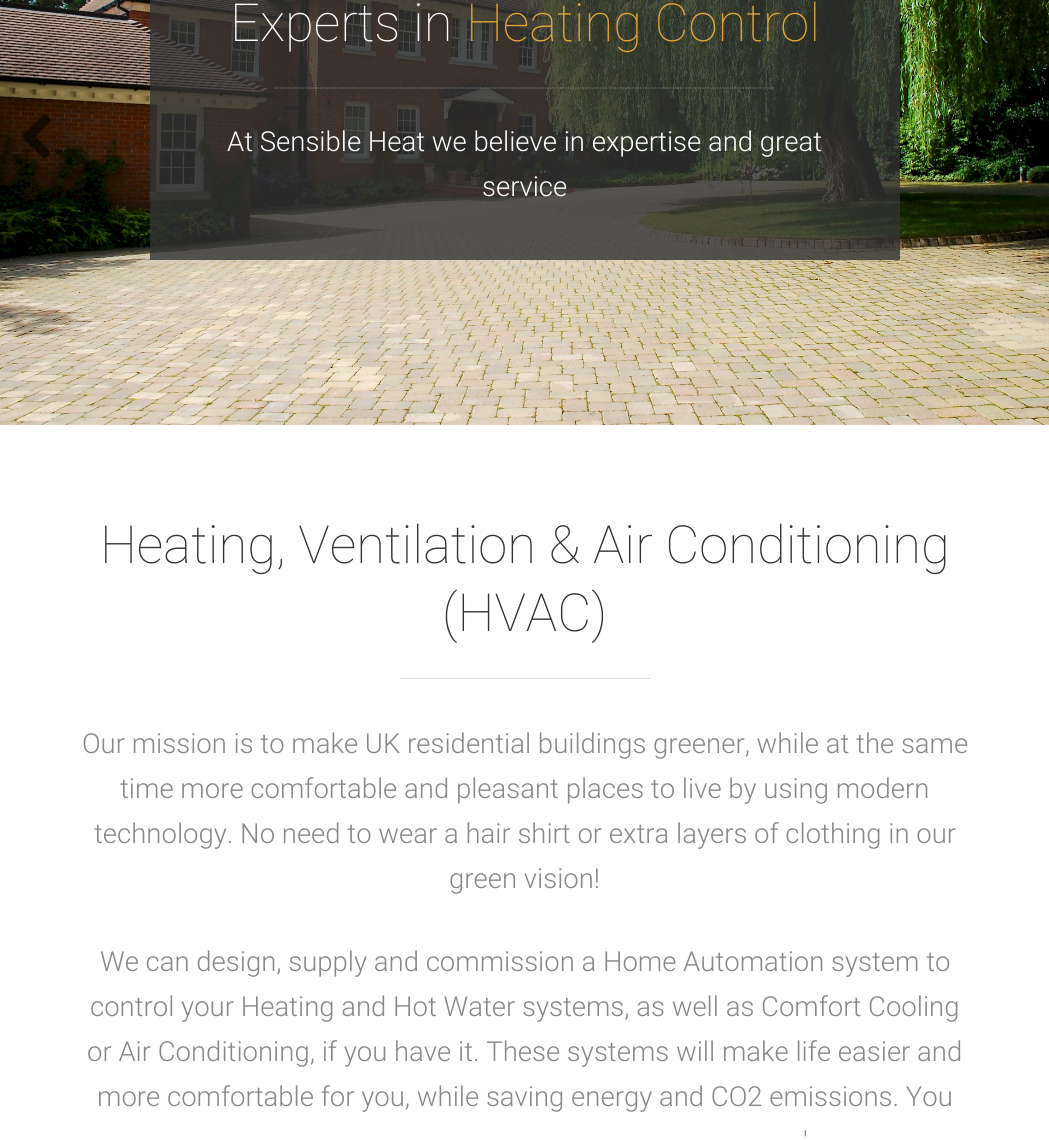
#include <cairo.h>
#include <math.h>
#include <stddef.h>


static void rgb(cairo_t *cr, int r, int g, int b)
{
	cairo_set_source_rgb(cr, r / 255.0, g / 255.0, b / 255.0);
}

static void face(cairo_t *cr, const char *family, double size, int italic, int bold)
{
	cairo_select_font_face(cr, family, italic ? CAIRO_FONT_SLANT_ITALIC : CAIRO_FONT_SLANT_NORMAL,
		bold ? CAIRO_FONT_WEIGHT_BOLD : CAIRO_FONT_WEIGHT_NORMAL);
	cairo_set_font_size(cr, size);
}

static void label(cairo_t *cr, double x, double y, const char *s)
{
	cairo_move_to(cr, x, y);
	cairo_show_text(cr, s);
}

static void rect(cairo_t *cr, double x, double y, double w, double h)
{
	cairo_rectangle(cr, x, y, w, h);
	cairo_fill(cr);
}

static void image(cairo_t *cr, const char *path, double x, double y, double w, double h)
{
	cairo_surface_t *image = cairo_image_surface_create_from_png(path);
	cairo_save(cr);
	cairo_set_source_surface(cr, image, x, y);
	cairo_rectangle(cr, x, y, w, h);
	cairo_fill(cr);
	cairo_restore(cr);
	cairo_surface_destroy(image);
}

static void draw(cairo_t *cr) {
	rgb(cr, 255, 255, 255);
	cairo_paint(cr);
	image(cr, "image0.png", 0, 0, 1049, 425);
	cairo_set_source_rgba(cr, 0.2, 0.2, 0.2, 0.8);
	rect(cr, 150, 0, 750, 260);
	face(cr, "Roboto Thin", 52.5, 0, 0);
	rgb(cr, 255, 255, 255);
	label(cr, 230, 41, "Experts in");
	rgb(cr, 223, 166, 55);
	label(cr, 466, 41, "Heating Control");
	cairo_new_path(cr);
	cairo_move_to(cr, 275, 88);
	cairo_line_to(cr, 775, 88);
	cairo_set_source_rgba(cr, 0.667, 0.667, 0.667, 0.5);
	cairo_set_line_width(cr, 1.2);
	cairo_set_dash(cr, (double[]){1.25, 1.25}, 2, 0);
	cairo_stroke(cr);
	face(cr, "Roboto Light", 27.5, 0, 0);
	rgb(cr, 255, 255, 255);
	label(cr, 227, 151, "At Sensible Heat we believe in expertise and great");
	label(cr, 482, 196, "service");
	image(cr, "image1.png", 22, 115, 28, 44);
	image(cr, "image2.png", 1000, 115, 26, 44);
	face(cr, "Roboto Thin", 52.5, 0, 0);
	rgb(cr, 51, 51, 51);
	label(cr, 100, 563, "Heating, Ventilation & Air Conditioning");
	label(cr, 442, 631, "(HVAC)");
	rgb(cr, 221, 221, 221);
	rect(cr, 400, 678, 250, 1);
	face(cr, "Roboto Light", 27.5, 0, 0);
	rgb(cr, 136, 136, 136);
	label(cr, 82, 753, "Our mission is to make UK residential buildings greener, while at the same");
	label(cr, 120, 798, "time more comfortable and pleasant places to live by using modern");
	label(cr, 94, 843, "technology. No need to wear a hair shirt or extra layers of clothing in our");
	label(cr, 449, 888, "green vision!");
	label(cr, 100, 971, "We can design, supply and commission a Home Automation system to");
	label(cr, 90, 1016, "control your Heating and Hot Water systems, as well as Comfort Cooling");
	label(cr, 87, 1061, "or Air Conditioning, if you have it. These systems will make life easier and");
	label(cr, 97, 1106, "more comfortable for you, while saving energy and CO2 emissions. You");
	label(cr, 803, 1151, "'");
}

int main(void) {
	cairo_surface_t *surface = cairo_image_surface_create(CAIRO_FORMAT_RGB24, 1049, 1140);
	cairo_t *cr = cairo_create(surface);
	cairo_font_options_t *options = cairo_font_options_create();
	cairo_font_options_set_hint_metrics(options, CAIRO_HINT_METRICS_OFF);
	cairo_font_options_set_hint_style(options, CAIRO_HINT_STYLE_NONE);
	cairo_set_font_options(cr, options);
	cairo_set_miter_limit(cr, 4);
	draw(cr);
	cairo_surface_write_to_png(surface, "render.png");
	cairo_font_options_destroy(options);
	cairo_destroy(cr);
	cairo_surface_destroy(surface);
	return 0;
}
